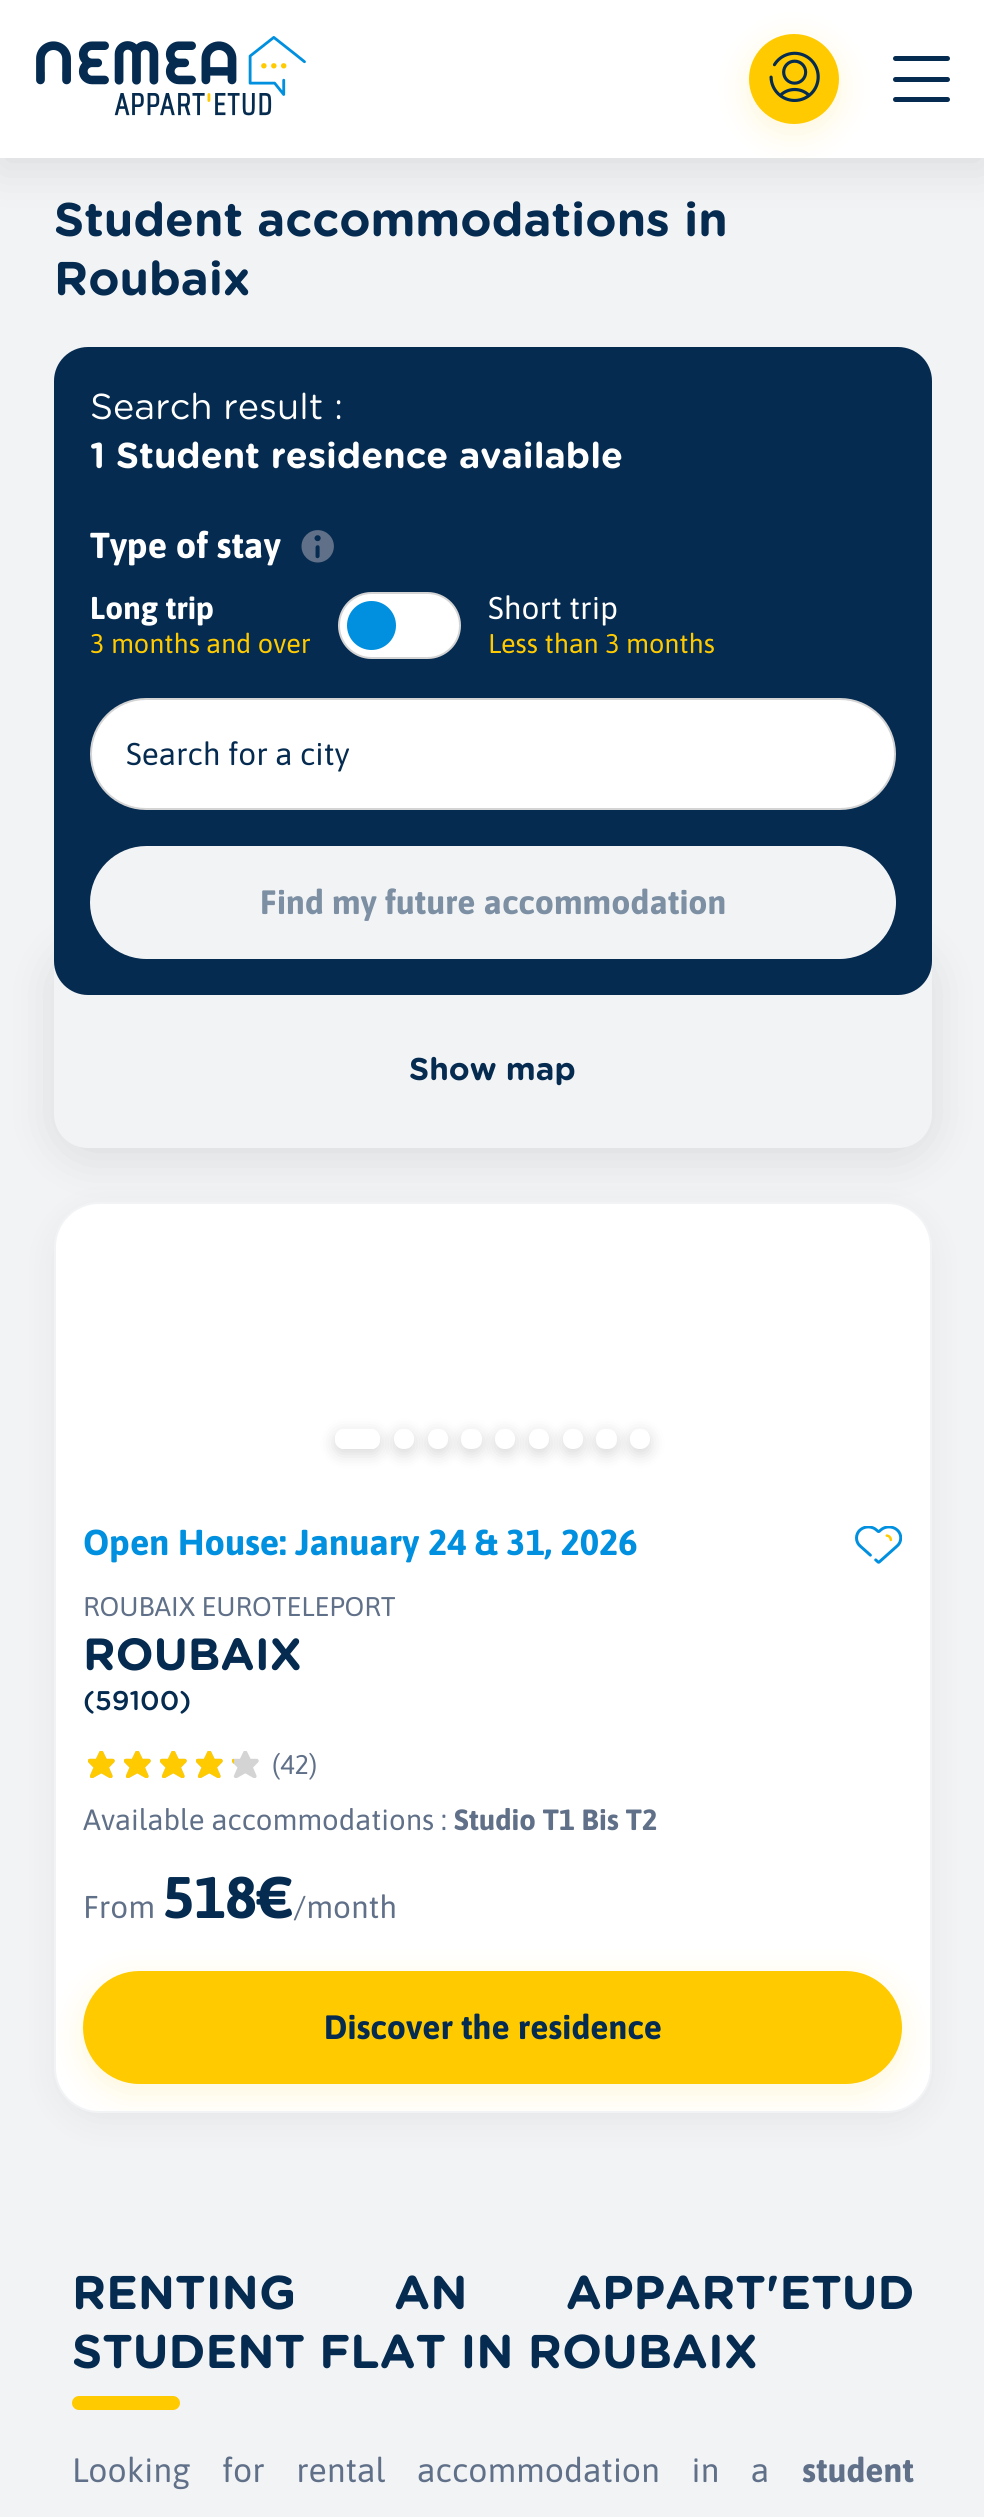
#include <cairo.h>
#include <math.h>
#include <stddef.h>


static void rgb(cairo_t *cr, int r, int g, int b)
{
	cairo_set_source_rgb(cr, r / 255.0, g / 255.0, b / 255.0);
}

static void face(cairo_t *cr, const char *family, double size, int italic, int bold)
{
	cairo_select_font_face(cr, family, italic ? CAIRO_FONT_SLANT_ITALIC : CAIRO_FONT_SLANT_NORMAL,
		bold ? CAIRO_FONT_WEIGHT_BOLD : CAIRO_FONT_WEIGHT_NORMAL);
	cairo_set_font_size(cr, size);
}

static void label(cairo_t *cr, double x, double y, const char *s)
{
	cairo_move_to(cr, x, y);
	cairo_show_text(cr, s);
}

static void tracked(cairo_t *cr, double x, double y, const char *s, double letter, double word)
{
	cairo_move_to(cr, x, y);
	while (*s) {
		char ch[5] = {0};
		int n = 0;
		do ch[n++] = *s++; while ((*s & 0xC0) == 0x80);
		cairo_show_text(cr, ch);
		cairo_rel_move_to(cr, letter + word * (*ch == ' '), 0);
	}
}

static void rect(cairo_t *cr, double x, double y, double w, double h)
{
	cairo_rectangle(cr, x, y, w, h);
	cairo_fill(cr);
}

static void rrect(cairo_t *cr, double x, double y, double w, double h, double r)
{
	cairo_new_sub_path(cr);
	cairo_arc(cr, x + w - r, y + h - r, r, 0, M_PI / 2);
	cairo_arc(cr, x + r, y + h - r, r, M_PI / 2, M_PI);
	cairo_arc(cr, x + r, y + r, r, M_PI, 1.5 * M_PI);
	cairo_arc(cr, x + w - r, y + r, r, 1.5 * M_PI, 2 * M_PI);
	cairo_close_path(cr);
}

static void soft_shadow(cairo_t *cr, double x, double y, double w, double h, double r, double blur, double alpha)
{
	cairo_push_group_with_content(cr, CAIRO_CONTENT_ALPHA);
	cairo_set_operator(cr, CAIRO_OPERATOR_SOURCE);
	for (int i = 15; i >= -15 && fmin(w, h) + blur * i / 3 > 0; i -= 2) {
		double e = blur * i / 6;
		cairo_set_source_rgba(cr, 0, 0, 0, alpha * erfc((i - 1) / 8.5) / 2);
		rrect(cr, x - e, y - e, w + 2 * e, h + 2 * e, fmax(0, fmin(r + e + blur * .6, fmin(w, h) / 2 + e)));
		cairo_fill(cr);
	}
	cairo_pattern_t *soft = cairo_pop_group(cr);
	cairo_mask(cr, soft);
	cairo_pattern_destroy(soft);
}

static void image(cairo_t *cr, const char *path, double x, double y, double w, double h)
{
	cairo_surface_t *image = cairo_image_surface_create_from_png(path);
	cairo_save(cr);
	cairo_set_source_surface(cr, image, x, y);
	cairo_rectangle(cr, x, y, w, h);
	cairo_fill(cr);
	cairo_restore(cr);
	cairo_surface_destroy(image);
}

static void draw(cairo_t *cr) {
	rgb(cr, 242, 243, 245);
	cairo_paint(cr);
	rgb(cr, 0, 0, 0);
	soft_shadow(cr, 0, 9, 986, 158, 0, 22.5, 0.1);
	rgb(cr, 255, 255, 255);
	rect(cr, 0, 0, 984, 158);
	image(cr, "image0.png", 36, 36, 270, 80);
	rgb(cr, 255, 202, 0);
	soft_shadow(cr, 749, 43, 90, 90, 45, 17, 0.15);
	rgb(cr, 255, 202, 0);
	cairo_arc(cr, 794, 79, 45, 0, 2 * M_PI);
	cairo_fill(cr);
	image(cr, "image1.png", 769, 51, 51, 51);
	rgb(cr, 5, 43, 80);
	rrect(cr, 893, 56, 57, 5, 2.5);
	cairo_fill(cr);
	rrect(cr, 893, 77, 57, 5, 2.5);
	cairo_fill(cr);
	rrect(cr, 893, 97, 57, 5, 2.5);
	cairo_fill(cr);
	face(cr, "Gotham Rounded", 47.25, 0, 1);
	label(cr, 54, 236, "Student accommodations in");
	label(cr, 54, 295, "Roubaix");
	rgb(cr, 0, 0, 0);
	soft_shadow(cr, 54, 1211, 878, 911, 45, 17, 0.05);
	rgb(cr, 255, 255, 255);
	rrect(cr, 55, 1203, 876, 909, 44);
	cairo_fill_preserve(cr);
	rgb(cr, 242, 243, 245);
	cairo_stroke(cr);
	rgb(cr, 0, 0, 0);
	soft_shadow(cr, 54, 950, 878, 207, 34, 22.5, 0.1);
	rgb(cr, 242, 243, 245);
	cairo_new_path(cr);
	cairo_move_to(cr, 54, 941);
	cairo_line_to(cr, 932, 941);
	cairo_line_to(cr, 932, 1114);
	cairo_curve_to(cr, 932, 1133, 917, 1148, 898, 1148);
	cairo_line_to(cr, 88, 1148);
	cairo_curve_to(cr, 69, 1148, 54, 1133, 54, 1114);
	cairo_close_path(cr);
	cairo_fill(cr);
	rgb(cr, 5, 43, 80);
	rrect(cr, 54, 347, 878, 648, 34);
	cairo_fill(cr);
	face(cr, "Gotham Rounded", 36, 0, 0);
	rgb(cr, 255, 255, 255);
	label(cr, 90, 419, "Search result :");
	face(cr, "Gotham Rounded", 36, 0, 1);
	label(cr, 90, 468, "1 Student residence available");
	face(cr, "Asap", 36, 0, 1);
	label(cr, 90, 558, "Type of stay");
	image(cr, "image2.png", 301, 530, 33, 33);
	face(cr, "Asap", 31.5, 0, 1);
	label(cr, 90, 619, "Long trip");
	face(cr, "Asap", 27, 0, 0);
	rgb(cr, 255, 202, 0);
	label(cr, 90, 653, "3 months and over");
	rgb(cr, 255, 255, 255);
	rrect(cr, 339, 593, 121, 65, 32.5);
	cairo_fill_preserve(cr);
	rgb(cr, 212, 212, 212);
	cairo_stroke(cr);
	rgb(cr, 0, 144, 223);
	cairo_arc(cr, 371.5, 625.5, 24.5, 0, 2 * M_PI);
	cairo_fill(cr);
	face(cr, "Asap", 31.5, 0, 0);
	rgb(cr, 255, 255, 255);
	label(cr, 488, 619, "Short trip");
	face(cr, "Asap", 27, 0, 0);
	rgb(cr, 255, 202, 0);
	label(cr, 488, 653, "Less than 3 months");
	rgb(cr, 255, 255, 255);
	rrect(cr, 91, 699, 804, 110, 55);
	cairo_fill_preserve(cr);
	rgb(cr, 212, 212, 212);
	cairo_stroke(cr);
	face(cr, "Asap", 31.5, 0, 0);
	rgb(cr, 5, 43, 80);
	label(cr, 126, 765, "Search for a city");
	rgb(cr, 242, 243, 245);
	rrect(cr, 90, 846, 806, 113, 56.5);
	cairo_fill(cr);
	face(cr, "Asap", 33.75, 0, 1);
	rgb(cr, 124, 143, 163);
	label(cr, 260, 914, "Find my future accommodation");
	face(cr, "Gotham Rounded", 31.5, 0, 1);
	rgb(cr, 5, 43, 80);
	label(cr, 409, 1080, "Show map");
	rgb(cr, 0, 0, 0);
	soft_shadow(cr, 335, 1433, 45, 21, 9, 8, 0.15);
	rgb(cr, 255, 255, 255);
	rrect(cr, 335, 1429, 45, 20, 9);
	cairo_fill(cr);
	cairo_new_path(cr);
	cairo_move_to(cr, 344, 1429);
	cairo_curve_to(cr, 332, 1429, 332, 1449, 344, 1449);
	cairo_line_to(cr, 373, 1449);
	cairo_curve_to(cr, 383, 1447, 382, 1429, 371, 1429);
	cairo_close_path(cr);
	cairo_fill(cr);
	rgb(cr, 0, 0, 0);
	soft_shadow(cr, 394, 1433, 20, 21, 9, 8, 0.15);
	rgb(cr, 255, 255, 255);
	cairo_new_path(cr);
	cairo_move_to(cr, 403, 1429);
	cairo_curve_to(cr, 391.5, 1429, 390.5, 1448, 403, 1449);
	cairo_curve_to(cr, 418, 1450, 417, 1429, 405, 1429);
	cairo_close_path(cr);
	cairo_fill(cr);
	rgb(cr, 0, 0, 0);
	soft_shadow(cr, 428, 1433, 20, 21, 9, 8, 0.15);
	rgb(cr, 255, 255, 255);
	cairo_new_path(cr);
	cairo_move_to(cr, 437, 1429);
	cairo_curve_to(cr, 425.5, 1429, 424.5, 1448, 437, 1449);
	cairo_curve_to(cr, 452, 1450, 451, 1429, 439, 1429);
	cairo_close_path(cr);
	cairo_fill(cr);
	rgb(cr, 0, 0, 0);
	soft_shadow(cr, 461, 1433, 21, 21, 9, 8, 0.15);
	rgb(cr, 255, 255, 255);
	cairo_new_path(cr);
	cairo_move_to(cr, 470, 1429);
	cairo_curve_to(cr, 467, 1429, 464, 1430.5, 462.5, 1433);
	cairo_curve_to(cr, 461.5, 1435, 461, 1437, 461, 1439);
	cairo_curve_to(cr, 461, 1445.5, 464.5, 1449, 471, 1449);
	cairo_curve_to(cr, 477, 1449, 481.5, 1447, 482, 1440);
	cairo_curve_to(cr, 482.5, 1434.5, 479, 1429, 473, 1429);
	cairo_close_path(cr);
	cairo_fill(cr);
	rgb(cr, 0, 0, 0);
	soft_shadow(cr, 495, 1433, 20, 21, 9, 8, 0.15);
	rgb(cr, 255, 255, 255);
	cairo_new_path(cr);
	cairo_move_to(cr, 504, 1429);
	cairo_curve_to(cr, 492.5, 1429, 491.5, 1448, 504, 1449);
	cairo_curve_to(cr, 519, 1450, 518, 1429, 506, 1429);
	cairo_close_path(cr);
	cairo_fill(cr);
	rgb(cr, 0, 0, 0);
	soft_shadow(cr, 529, 1433, 20, 21, 9, 8, 0.15);
	rgb(cr, 255, 255, 255);
	cairo_new_path(cr);
	cairo_move_to(cr, 538, 1429);
	cairo_curve_to(cr, 526, 1429, 525, 1450, 540, 1449);
	cairo_curve_to(cr, 552.5, 1448, 551.5, 1429, 540, 1429);
	cairo_close_path(cr);
	cairo_fill(cr);
	rgb(cr, 0, 0, 0);
	soft_shadow(cr, 563, 1433, 20, 21, 9, 8, 0.15);
	rgb(cr, 255, 255, 255);
	cairo_new_path(cr);
	cairo_move_to(cr, 572, 1429);
	cairo_curve_to(cr, 560.5, 1429, 559.5, 1448, 572, 1449);
	cairo_curve_to(cr, 587, 1450, 586, 1429, 574, 1429);
	cairo_close_path(cr);
	cairo_fill(cr);
	rgb(cr, 0, 0, 0);
	soft_shadow(cr, 596, 1433, 21, 21, 9, 8, 0.15);
	rgb(cr, 255, 255, 255);
	cairo_new_path(cr);
	cairo_move_to(cr, 605, 1429);
	cairo_curve_to(cr, 599, 1429, 595.5, 1434.5, 596, 1440);
	cairo_curve_to(cr, 596.5, 1447, 601, 1449, 607, 1449);
	cairo_curve_to(cr, 613.5, 1449, 617, 1445.5, 617, 1439);
	cairo_curve_to(cr, 617, 1437, 616.5, 1435, 615.5, 1433);
	cairo_curve_to(cr, 614, 1430.5, 611, 1429, 608, 1429);
	cairo_close_path(cr);
	cairo_fill(cr);
	rgb(cr, 0, 0, 0);
	soft_shadow(cr, 630, 1433, 20, 21, 9, 8, 0.15);
	rgb(cr, 255, 255, 255);
	cairo_new_path(cr);
	cairo_move_to(cr, 639, 1429);
	cairo_curve_to(cr, 627, 1429, 626, 1450, 641, 1449);
	cairo_curve_to(cr, 653.5, 1448, 652.5, 1429, 641, 1429);
	cairo_close_path(cr);
	cairo_fill(cr);
	face(cr, "Asap", 36, 0, 1);
	rgb(cr, 0, 144, 223);
	label(cr, 83, 1555, "Open House: January 24 & 31, 2026");
	face(cr, "Asap", 27, 0, 0);
	rgb(cr, 96, 112, 136);
	label(cr, 83, 1616, "ROUBAIX EUROTELEPORT");
	face(cr, "Gotham Rounded", 45, 0, 1);
	rgb(cr, 5, 43, 80);
	label(cr, 83, 1670, "ROUBAIX");
	face(cr, "Gotham Rounded Medium", 27, 0, 0);
	label(cr, 83, 1710, "(59100)");
	image(cr, "image3.png", 88, 1751, 27, 27);
	image(cr, "image3.png", 124, 1751, 27, 27);
	image(cr, "image3.png", 160, 1751, 27, 27);
	image(cr, "image3.png", 196, 1751, 27, 27);
	image(cr, "image3.png", 232, 1751, 27, 27);
	image(cr, "image4.png", 88, 1751, 27, 27);
	image(cr, "image4.png", 124, 1751, 27, 27);
	image(cr, "image4.png", 160, 1751, 27, 27);
	image(cr, "image4.png", 196, 1751, 27, 27);
	image(cr, "image5.png", 232, 1758, 2, 19);
	face(cr, "Asap", 27, 0, 0);
	rgb(cr, 96, 112, 136);
	label(cr, 272, 1774, "(42)");
	face(cr, "Asap", 29.25, 0, 0);
	label(cr, 83, 1830, "Available accommodations :");
	face(cr, "Asap", 29.25, 0, 1);
	label(cr, 454, 1830, "Studio T1 Bis T2");
	face(cr, "Asap", 31.5, 0, 0);
	label(cr, 83, 1918, "From");
	face(cr, "Asap", 58.5, 0, 1);
	rgb(cr, 5, 43, 80);
	label(cr, 163, 1918, "518€");
	face(cr, "Asap", 31.5, 0, 0);
	rgb(cr, 96, 112, 136);
	label(cr, 293, 1918, "/month");
	image(cr, "image6.png", 855, 1526, 47, 38);
	cairo_save(cr);
	rrect(cr, 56, 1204, 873, 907, 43);
	cairo_clip(cr);
	rgb(cr, 255, 202, 0);
	soft_shadow(cr, 83, 1980, 819, 113, 56.5, 17, 0.15);
	cairo_restore(cr);
	rgb(cr, 255, 202, 0);
	rrect(cr, 83, 1971, 819, 113, 56.5);
	cairo_fill(cr);
	face(cr, "Asap", 33.75, 0, 1);
	rgb(cr, 5, 43, 80);
	label(cr, 324, 2039, "Discover the residence");
	face(cr, "Gotham Rounded", 47.25, 0, 1);
	tracked(cr, 72, 2309, "RENTING AN APPART'ETUD", 0, 84);
	label(cr, 72, 2368, "STUDENT FLAT IN ROUBAIX");
	rgb(cr, 255, 202, 0);
	rrect(cr, 72, 2396, 108, 14, 7);
	cairo_fill(cr);
	face(cr, "Asap", 33.75, 0, 0);
	rgb(cr, 96, 112, 136);
	tracked(cr, 72, 2482, "Looking for rental accommodation in a", 0, 23.5);
	face(cr, "Asap", 33.75, 0, 1);
	label(cr, 802, 2482, "student");
}

int main(void) {
	cairo_surface_t *surface = cairo_image_surface_create(CAIRO_FORMAT_RGB24, 984, 2517);
	cairo_t *cr = cairo_create(surface);
	cairo_font_options_t *options = cairo_font_options_create();
	cairo_font_options_set_hint_metrics(options, CAIRO_HINT_METRICS_OFF);
	cairo_font_options_set_hint_style(options, CAIRO_HINT_STYLE_NONE);
	cairo_set_font_options(cr, options);
	cairo_set_miter_limit(cr, 4);
	draw(cr);
	cairo_surface_write_to_png(surface, "render.png");
	cairo_font_options_destroy(options);
	cairo_destroy(cr);
	cairo_surface_destroy(surface);
	return 0;
}
